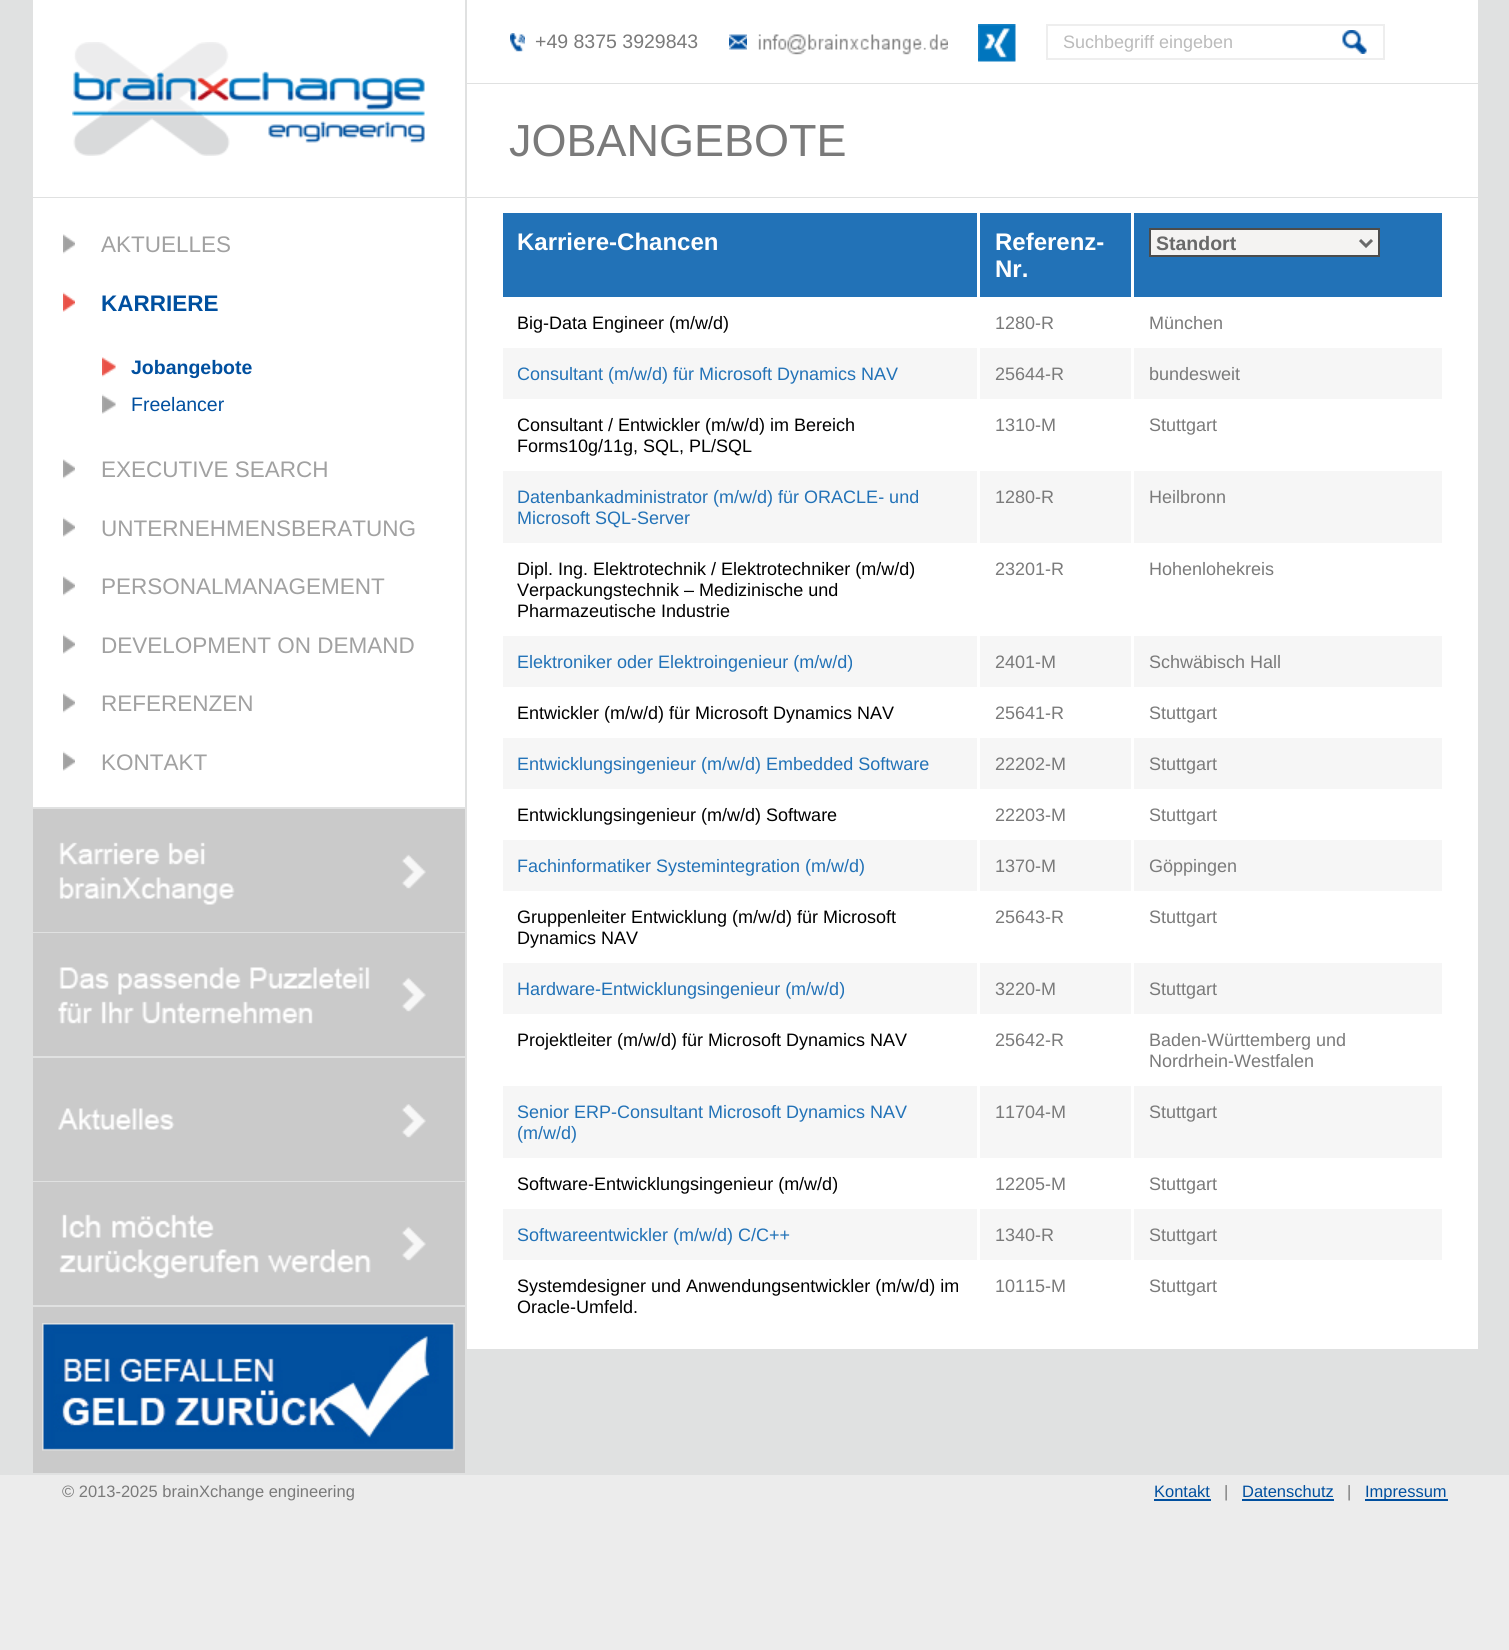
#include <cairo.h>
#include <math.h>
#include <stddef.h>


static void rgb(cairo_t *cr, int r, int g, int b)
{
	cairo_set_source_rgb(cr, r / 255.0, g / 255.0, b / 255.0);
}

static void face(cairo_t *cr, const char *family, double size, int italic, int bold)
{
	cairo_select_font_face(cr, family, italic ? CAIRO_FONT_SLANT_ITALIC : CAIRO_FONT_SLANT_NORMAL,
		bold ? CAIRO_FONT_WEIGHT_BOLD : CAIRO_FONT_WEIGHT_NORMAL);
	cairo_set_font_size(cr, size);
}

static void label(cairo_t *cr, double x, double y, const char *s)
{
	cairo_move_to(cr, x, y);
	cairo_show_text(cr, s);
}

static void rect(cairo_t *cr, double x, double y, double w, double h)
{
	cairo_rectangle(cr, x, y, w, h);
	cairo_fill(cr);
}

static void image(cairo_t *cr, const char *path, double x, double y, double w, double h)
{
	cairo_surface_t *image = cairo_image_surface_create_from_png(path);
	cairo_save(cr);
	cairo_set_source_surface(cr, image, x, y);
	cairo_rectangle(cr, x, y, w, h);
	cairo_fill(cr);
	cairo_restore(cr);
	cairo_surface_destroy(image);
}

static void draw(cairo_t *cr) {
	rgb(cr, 224, 225, 225);
	cairo_paint(cr);
	rgb(cr, 255, 255, 255);
	rect(cr, 33, 0, 432, 197);
	image(cr, "image0.png", 72, 42, 353, 114);
	rect(cr, 467, 0, 1011, 83);
	image(cr, "image1.png", 510, 33, 15, 19);
	face(cr, "Liberation Sans", 19.5, 0, 0);
	rgb(cr, 122, 122, 122);
	label(cr, 535, 48, "+49 8375 3929843");
	image(cr, "image2.png", 729, 34, 18, 16);
	image(cr, "image3.png", 758, 34, 190, 21);
	image(cr, "image4.png", 978, 24, 38, 38);
	cairo_rectangle(cr, 1047, 25, 337, 34);
	rgb(cr, 238, 238, 238);
	cairo_stroke(cr);
	face(cr, "Liberation Sans", 18, 0, 0);
	rgb(cr, 187, 187, 187);
	label(cr, 1063, 48, "Suchbegriff eingeben");
	image(cr, "image5.png", 1342, 30, 25, 24);
	rgb(cr, 255, 255, 255);
	rect(cr, 467, 84, 1011, 113);
	face(cr, "Liberation Sans", 45, 0, 0);
	rgb(cr, 122, 122, 122);
	label(cr, 509, 156, "JOBANGEBOTE");
	rgb(cr, 255, 255, 255);
	rect(cr, 33, 198, 432, 609);
	image(cr, "image6.png", 63, 234, 12, 20);
	face(cr, "Liberation Sans", 22.5, 0, 0);
	rgb(cr, 161, 161, 161);
	label(cr, 101, 252, "AKTUELLES");
	image(cr, "image7.png", 63, 292, 12, 20);
	face(cr, "Liberation Sans", 22.5, 0, 1);
	rgb(cr, 0, 79, 159);
	label(cr, 101, 311, "KARRIERE");
	image(cr, "image8.png", 102, 357, 14, 20);
	face(cr, "Liberation Sans", 19.5, 0, 1);
	label(cr, 131, 374, "Jobangebote");
	image(cr, "image9.png", 102, 394, 14, 20);
	face(cr, "Liberation Sans", 19.5, 0, 0);
	label(cr, 131, 411, "Freelancer");
	image(cr, "image6.png", 63, 459, 12, 20);
	face(cr, "Liberation Sans", 22.5, 0, 0);
	rgb(cr, 161, 161, 161);
	label(cr, 101, 477, "EXECUTIVE SEARCH");
	image(cr, "image10.png", 63, 517, 12, 20);
	label(cr, 101, 536, "UNTERNEHMENSBERATUNG");
	image(cr, "image6.png", 63, 576, 12, 20);
	label(cr, 101, 594, "PERSONALMANAGEMENT");
	image(cr, "image10.png", 63, 634, 12, 20);
	label(cr, 101, 653, "DEVELOPMENT ON DEMAND");
	image(cr, "image6.png", 63, 693, 12, 20);
	label(cr, 101, 711, "REFERENZEN");
	image(cr, "image10.png", 63, 751, 12, 20);
	label(cr, 101, 770, "KONTAKT");
	rgb(cr, 202, 202, 202);
	rect(cr, 33, 809, 432, 123);
	image(cr, "image11.png", 59, 842, 367, 63);
	rect(cr, 33, 933, 432, 123);
	image(cr, "image12.png", 58, 967, 368, 57);
	rect(cr, 33, 1058, 432, 123);
	image(cr, "image13.png", 58, 1104, 368, 34);
	rect(cr, 33, 1182, 432, 123);
	image(cr, "image14.png", 59, 1214, 367, 65);
	rect(cr, 33, 1307, 432, 166);
	image(cr, "image15.png", 42, 1323, 413, 128);
	rgb(cr, 255, 255, 255);
	rect(cr, 467, 198, 1011, 1151);
	rgb(cr, 34, 114, 183);
	rect(cr, 503, 213, 474, 84);
	face(cr, "Liberation Sans", 24, 0, 1);
	rgb(cr, 255, 255, 255);
	label(cr, 517, 250, "Karriere-Chancen");
	rgb(cr, 34, 114, 183);
	rect(cr, 980, 213, 151, 84);
	rgb(cr, 255, 255, 255);
	label(cr, 995, 250, "Referenz-");
	label(cr, 995, 277, "Nr.");
	rgb(cr, 34, 114, 183);
	rect(cr, 1134, 213, 308, 84);
	rgb(cr, 244, 243, 242);
	cairo_rectangle(cr, 1150, 229, 229, 27);
	cairo_fill_preserve(cr);
	rgb(cr, 76, 76, 76);
	cairo_stroke(cr);
	cairo_new_path(cr);
	cairo_move_to(cr, 1360, 240);
	cairo_line_to(cr, 1366, 246);
	cairo_line_to(cr, 1372, 240);
	rgb(cr, 105, 105, 105);
	cairo_set_line_width(cr, 3);
	cairo_stroke(cr);
	face(cr, "Liberation Sans", 19.5, 0, 1);
	label(cr, 1156, 250, "Standort");
	face(cr, "Liberation Sans", 18, 0, 0);
	rgb(cr, 0, 0, 0);
	label(cr, 517, 329, "Big-Data Engineer (m/w/d)");
	rgb(cr, 122, 122, 122);
	label(cr, 995, 329, "1280-R");
	label(cr, 1149, 329, "München");
	rgb(cr, 246, 246, 246);
	rect(cr, 503, 348, 939, 51);
	rgb(cr, 34, 114, 183);
	label(cr, 517, 380, "Consultant (m/w/d) für Microsoft Dynamics NAV");
	rgb(cr, 122, 122, 122);
	label(cr, 995, 380, "25644-R");
	label(cr, 1149, 380, "bundesweit");
	rgb(cr, 255, 255, 255);
	rect(cr, 977, 347, 3, 54);
	rgb(cr, 0, 0, 0);
	label(cr, 517, 431, "Consultant / Entwickler (m/w/d) im Bereich");
	label(cr, 517, 452, "Forms10g/11g, SQL, PL/SQL");
	rgb(cr, 255, 255, 255);
	rect(cr, 1131, 347, 3, 54);
	rgb(cr, 122, 122, 122);
	label(cr, 995, 431, "1310-M");
	label(cr, 1149, 431, "Stuttgart");
	rgb(cr, 246, 246, 246);
	rect(cr, 503, 471, 939, 72);
	rgb(cr, 34, 114, 183);
	label(cr, 517, 503, "Datenbankadministrator (m/w/d) für ORACLE- und");
	label(cr, 517, 524, "Microsoft SQL-Server");
	rgb(cr, 122, 122, 122);
	label(cr, 995, 503, "1280-R");
	label(cr, 1149, 503, "Heilbronn");
	rgb(cr, 255, 255, 255);
	rect(cr, 977, 470, 3, 75);
	rgb(cr, 0, 0, 0);
	label(cr, 517, 575, "Dipl. Ing. Elektrotechnik / Elektrotechniker (m/w/d)");
	label(cr, 517, 596, "Verpackungstechnik – Medizinische und");
	label(cr, 517, 617, "Pharmazeutische Industrie");
	rgb(cr, 255, 255, 255);
	rect(cr, 1131, 470, 3, 75);
	rgb(cr, 122, 122, 122);
	label(cr, 995, 575, "23201-R");
	label(cr, 1149, 575, "Hohenlohekreis");
	rgb(cr, 246, 246, 246);
	rect(cr, 503, 636, 939, 51);
	rgb(cr, 34, 114, 183);
	label(cr, 517, 668, "Elektroniker oder Elektroingenieur (m/w/d)");
	rgb(cr, 122, 122, 122);
	label(cr, 995, 668, "2401-M");
	label(cr, 1149, 668, "Schwäbisch Hall");
	rgb(cr, 255, 255, 255);
	rect(cr, 977, 635, 3, 54);
	rgb(cr, 0, 0, 0);
	label(cr, 517, 719, "Entwickler (m/w/d) für Microsoft Dynamics NAV");
	rgb(cr, 255, 255, 255);
	rect(cr, 1131, 635, 3, 54);
	rgb(cr, 122, 122, 122);
	label(cr, 995, 719, "25641-R");
	label(cr, 1149, 719, "Stuttgart");
	rgb(cr, 246, 246, 246);
	rect(cr, 503, 738, 939, 51);
	rgb(cr, 34, 114, 183);
	label(cr, 517, 770, "Entwicklungsingenieur (m/w/d) Embedded Software");
	rgb(cr, 122, 122, 122);
	label(cr, 995, 770, "22202-M");
	label(cr, 1149, 770, "Stuttgart");
	rgb(cr, 255, 255, 255);
	rect(cr, 977, 737, 3, 54);
	rgb(cr, 0, 0, 0);
	label(cr, 517, 821, "Entwicklungsingenieur (m/w/d) Software");
	rgb(cr, 255, 255, 255);
	rect(cr, 1131, 737, 3, 54);
	rgb(cr, 122, 122, 122);
	label(cr, 995, 821, "22203-M");
	label(cr, 1149, 821, "Stuttgart");
	rgb(cr, 246, 246, 246);
	rect(cr, 503, 840, 939, 51);
	rgb(cr, 34, 114, 183);
	label(cr, 517, 872, "Fachinformatiker Systemintegration (m/w/d)");
	rgb(cr, 122, 122, 122);
	label(cr, 995, 872, "1370-M");
	label(cr, 1149, 872, "Göppingen");
	rgb(cr, 255, 255, 255);
	rect(cr, 977, 839, 3, 54);
	rgb(cr, 0, 0, 0);
	label(cr, 517, 923, "Gruppenleiter Entwicklung (m/w/d) für Microsoft");
	label(cr, 517, 944, "Dynamics NAV");
	rgb(cr, 255, 255, 255);
	rect(cr, 1131, 839, 3, 54);
	rgb(cr, 122, 122, 122);
	label(cr, 995, 923, "25643-R");
	label(cr, 1149, 923, "Stuttgart");
	rgb(cr, 246, 246, 246);
	rect(cr, 503, 963, 939, 51);
	rgb(cr, 34, 114, 183);
	label(cr, 517, 995, "Hardware-Entwicklungsingenieur (m/w/d)");
	rgb(cr, 122, 122, 122);
	label(cr, 995, 995, "3220-M");
	label(cr, 1149, 995, "Stuttgart");
	rgb(cr, 255, 255, 255);
	rect(cr, 977, 962, 3, 54);
	rgb(cr, 0, 0, 0);
	label(cr, 517, 1046, "Projektleiter (m/w/d) für Microsoft Dynamics NAV");
	rgb(cr, 255, 255, 255);
	rect(cr, 1131, 962, 3, 54);
	rgb(cr, 122, 122, 122);
	label(cr, 995, 1046, "25642-R");
	label(cr, 1149, 1046, "Baden-Württemberg und");
	label(cr, 1149, 1067, "Nordrhein-Westfalen");
	rgb(cr, 246, 246, 246);
	rect(cr, 503, 1086, 939, 72);
	rgb(cr, 34, 114, 183);
	label(cr, 517, 1118, "Senior ERP-Consultant Microsoft Dynamics NAV");
	label(cr, 517, 1139, "(m/w/d)");
	rgb(cr, 122, 122, 122);
	label(cr, 995, 1118, "11704-M");
	label(cr, 1149, 1118, "Stuttgart");
	rgb(cr, 255, 255, 255);
	rect(cr, 977, 1085, 3, 75);
	rgb(cr, 0, 0, 0);
	label(cr, 517, 1190, "Software-Entwicklungsingenieur (m/w/d)");
	rgb(cr, 255, 255, 255);
	rect(cr, 1131, 1085, 3, 75);
	rgb(cr, 122, 122, 122);
	label(cr, 995, 1190, "12205-M");
	label(cr, 1149, 1190, "Stuttgart");
	rgb(cr, 246, 246, 246);
	rect(cr, 503, 1209, 939, 51);
	rgb(cr, 34, 114, 183);
	label(cr, 517, 1241, "Softwareentwickler (m/w/d) C/C++");
	rgb(cr, 122, 122, 122);
	label(cr, 995, 1241, "1340-R");
	label(cr, 1149, 1241, "Stuttgart");
	rgb(cr, 255, 255, 255);
	rect(cr, 977, 1208, 3, 54);
	rgb(cr, 0, 0, 0);
	label(cr, 517, 1292, "Systemdesigner und Anwendungsentwickler (m/w/d) im");
	label(cr, 517, 1313, "Oracle-Umfeld.");
	rgb(cr, 255, 255, 255);
	rect(cr, 1131, 1208, 3, 54);
	rgb(cr, 122, 122, 122);
	label(cr, 995, 1292, "10115-M");
	label(cr, 1149, 1292, "Stuttgart");
	rgb(cr, 236, 236, 236);
	rect(cr, 0, 1475, 1509, 175);
	face(cr, "Liberation Sans", 16.5, 0, 0);
	rgb(cr, 122, 122, 122);
	label(cr, 62, 1497, "© 2013-2025 brainXchange engineering");
	rgb(cr, 0, 79, 159);
	label(cr, 1154, 1497, "Kontakt");
	rect(cr, 1154, 1499, 57, 2);
	rgb(cr, 122, 122, 122);
	label(cr, 1224, 1497, "|");
	rgb(cr, 0, 79, 159);
	label(cr, 1242, 1497, "Datenschutz");
	rect(cr, 1242, 1499, 92, 2);
	rgb(cr, 122, 122, 122);
	label(cr, 1347, 1497, "|");
	rgb(cr, 0, 79, 159);
	rect(cr, 1365, 1499, 83, 2);
	label(cr, 1365, 1497, "Impressum");
}

int main(void) {
	cairo_surface_t *surface = cairo_image_surface_create(CAIRO_FORMAT_RGB24, 1509, 1650);
	cairo_t *cr = cairo_create(surface);
	cairo_font_options_t *options = cairo_font_options_create();
	cairo_font_options_set_hint_metrics(options, CAIRO_HINT_METRICS_OFF);
	cairo_font_options_set_hint_style(options, CAIRO_HINT_STYLE_NONE);
	cairo_set_font_options(cr, options);
	cairo_set_miter_limit(cr, 4);
	draw(cr);
	cairo_surface_write_to_png(surface, "render.png");
	cairo_font_options_destroy(options);
	cairo_destroy(cr);
	cairo_surface_destroy(surface);
	return 0;
}
